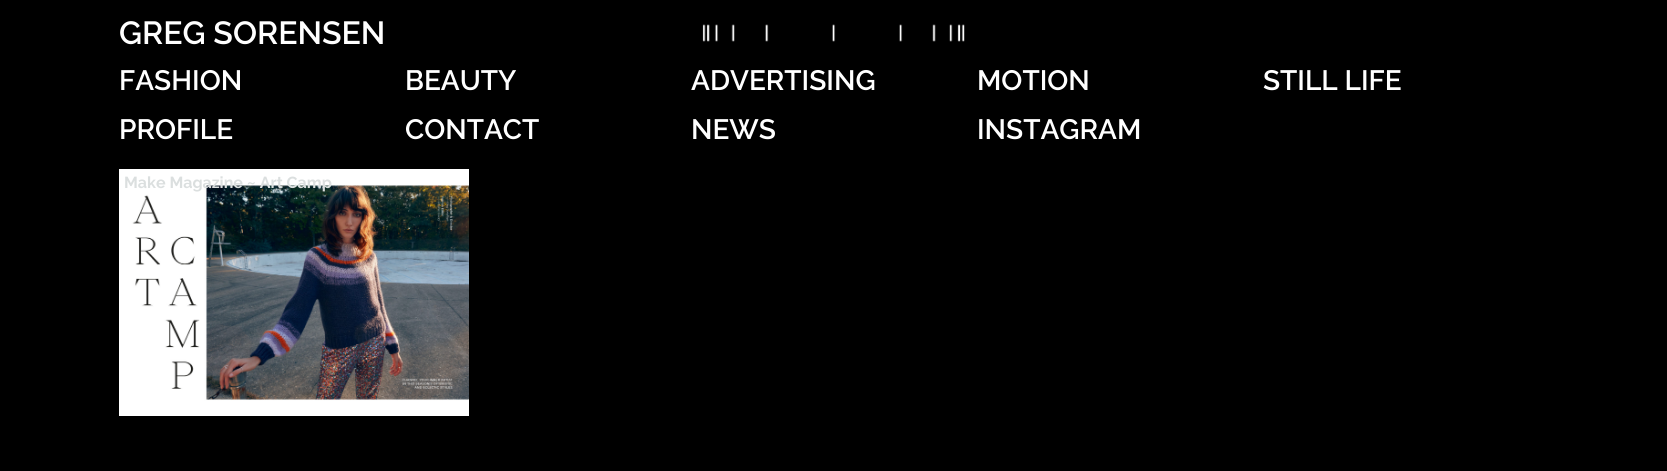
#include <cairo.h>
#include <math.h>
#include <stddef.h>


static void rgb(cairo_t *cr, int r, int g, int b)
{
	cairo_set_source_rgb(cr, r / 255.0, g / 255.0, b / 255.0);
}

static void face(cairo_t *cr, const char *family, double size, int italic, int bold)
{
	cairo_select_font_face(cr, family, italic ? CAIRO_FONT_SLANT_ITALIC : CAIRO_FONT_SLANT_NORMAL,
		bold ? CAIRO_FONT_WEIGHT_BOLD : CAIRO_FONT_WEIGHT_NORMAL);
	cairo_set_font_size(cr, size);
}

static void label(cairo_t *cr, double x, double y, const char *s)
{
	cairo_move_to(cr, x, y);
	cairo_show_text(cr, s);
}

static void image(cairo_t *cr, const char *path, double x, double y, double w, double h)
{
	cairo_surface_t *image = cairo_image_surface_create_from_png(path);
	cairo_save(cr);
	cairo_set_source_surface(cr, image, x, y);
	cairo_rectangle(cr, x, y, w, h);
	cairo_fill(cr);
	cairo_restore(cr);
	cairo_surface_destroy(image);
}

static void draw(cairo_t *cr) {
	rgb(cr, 0, 0, 0);
	cairo_paint(cr);
	face(cr, "Raleway SemiBold", 32, 0, 0);
	rgb(cr, 255, 255, 255);
	label(cr, 119, 44, "GREG SORENSEN");
	image(cr, "image0.png", 702, 24, 263, 18);
	face(cr, "Raleway SemiBold", 28, 0, 0);
	label(cr, 119, 90, "FASHION");
	label(cr, 405, 90, "BEAUTY");
	label(cr, 691, 90, "ADVERTISING");
	label(cr, 977, 90, "MOTION");
	label(cr, 1263, 90, "STILL LIFE");
	label(cr, 119, 139, "PROFILE");
	label(cr, 405, 139, "CONTACT");
	label(cr, 691, 139, "NEWS");
	label(cr, 977, 139, "INSTAGRAM");
	image(cr, "image1.png", 119, 169, 350, 247);
	face(cr, "Raleway", 16, 0, 1);
	rgb(cr, 219, 223, 223);
	label(cr, 124, 188, "Make Magazine ~ Art Camp");
}

int main(void) {
	cairo_surface_t *surface = cairo_image_surface_create(CAIRO_FORMAT_RGB24, 1667, 471);
	cairo_t *cr = cairo_create(surface);
	cairo_font_options_t *options = cairo_font_options_create();
	cairo_font_options_set_hint_metrics(options, CAIRO_HINT_METRICS_OFF);
	cairo_font_options_set_hint_style(options, CAIRO_HINT_STYLE_NONE);
	cairo_set_font_options(cr, options);
	cairo_set_miter_limit(cr, 4);
	draw(cr);
	cairo_surface_write_to_png(surface, "render.png");
	cairo_font_options_destroy(options);
	cairo_destroy(cr);
	cairo_surface_destroy(surface);
	return 0;
}
